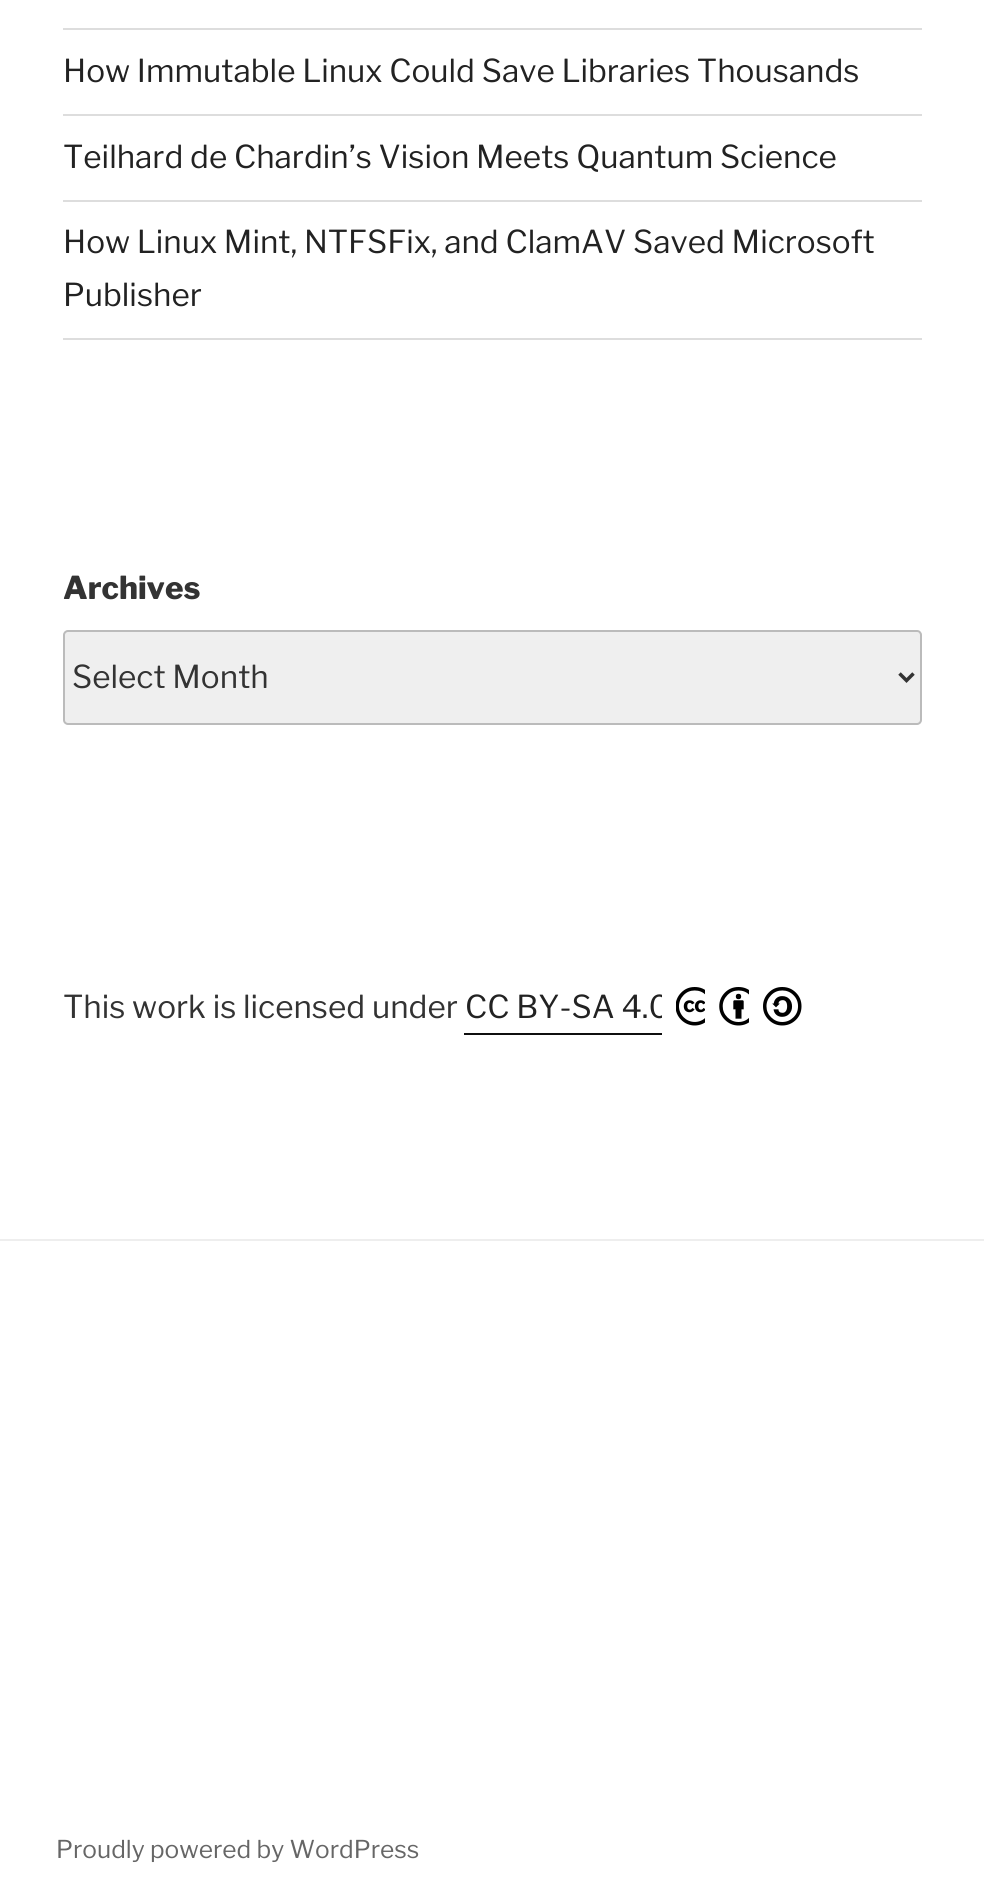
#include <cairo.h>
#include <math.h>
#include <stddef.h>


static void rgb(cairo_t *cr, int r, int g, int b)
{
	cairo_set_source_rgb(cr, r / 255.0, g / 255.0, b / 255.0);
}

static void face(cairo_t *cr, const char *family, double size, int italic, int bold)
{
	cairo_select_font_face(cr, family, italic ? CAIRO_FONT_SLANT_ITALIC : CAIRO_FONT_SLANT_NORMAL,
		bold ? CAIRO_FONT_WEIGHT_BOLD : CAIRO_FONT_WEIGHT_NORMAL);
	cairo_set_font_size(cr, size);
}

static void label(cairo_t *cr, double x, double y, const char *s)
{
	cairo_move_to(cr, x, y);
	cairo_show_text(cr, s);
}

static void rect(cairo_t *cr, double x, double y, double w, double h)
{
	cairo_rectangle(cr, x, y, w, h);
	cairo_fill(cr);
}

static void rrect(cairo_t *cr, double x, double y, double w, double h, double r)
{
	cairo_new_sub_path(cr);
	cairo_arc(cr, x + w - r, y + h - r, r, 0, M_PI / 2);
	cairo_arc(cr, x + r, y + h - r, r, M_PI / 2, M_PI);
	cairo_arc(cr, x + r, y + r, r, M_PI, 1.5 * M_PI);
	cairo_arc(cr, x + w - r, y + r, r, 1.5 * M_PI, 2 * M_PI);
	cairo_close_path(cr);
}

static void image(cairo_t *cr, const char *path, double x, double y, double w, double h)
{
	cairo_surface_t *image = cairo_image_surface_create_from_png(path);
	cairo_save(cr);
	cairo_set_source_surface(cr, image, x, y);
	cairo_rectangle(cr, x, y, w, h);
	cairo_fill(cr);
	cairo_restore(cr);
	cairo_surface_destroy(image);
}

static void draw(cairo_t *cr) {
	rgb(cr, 255, 255, 255);
	cairo_paint(cr);
	rgb(cr, 221, 221, 221);
	rect(cr, 63, 28, 859, 2);
	rect(cr, 63, 114, 859, 2);
	face(cr, "Libre Franklin Thin", 31.5, 0, 0);
	rgb(cr, 34, 34, 34);
	label(cr, 63, 82, "How Immutable Linux Could Save Libraries Thousands");
	rgb(cr, 221, 221, 221);
	rect(cr, 63, 200, 859, 2);
	rgb(cr, 34, 34, 34);
	label(cr, 63, 168, "Teilhard de Chardin’s Vision Meets Quantum Science");
	rgb(cr, 221, 221, 221);
	rect(cr, 63, 338, 859, 2);
	rgb(cr, 34, 34, 34);
	label(cr, 63, 253, "How Linux Mint, NTFSFix, and ClamAV Saved Microsoft");
	label(cr, 63, 306, "Publisher");
	face(cr, "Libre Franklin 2 Thin", 31.5, 0, 0);
	rgb(cr, 51, 51, 51);
	label(cr, 63, 599, "Archives");
	rgb(cr, 239, 239, 239);
	rrect(cr, 64, 631, 857, 93, 4);
	cairo_fill_preserve(cr);
	rgb(cr, 187, 187, 187);
	cairo_stroke(cr);
	cairo_new_path(cr);
	cairo_move_to(cr, 899.5, 673.5);
	cairo_line_to(cr, 906.5, 680.5);
	cairo_line_to(cr, 913.5, 673.5);
	rgb(cr, 51, 51, 51);
	cairo_set_line_width(cr, 3.5);
	cairo_stroke(cr);
	face(cr, "Libre Franklin Thin", 31.5, 0, 0);
	label(cr, 72, 688, "Select Month");
	label(cr, 63, 1018, "This work is licensed under");
	rgb(cr, 15, 15, 15);
	rect(cr, 464, 1033, 198, 2);
	rgb(cr, 34, 34, 34);
	label(cr, 465, 1018, "CC BY-SA 4.0");
	cairo_rectangle(cr, 669, 980, 52, 53);
	rgb(cr, 255, 255, 255);
	cairo_set_line_width(cr, 14);
	cairo_stroke(cr);
	image(cr, "image0.png", 676, 987, 29, 39);
	image(cr, "image1.png", 719, 987, 30, 39);
	image(cr, "image2.png", 763, 987, 39, 39);
	rgb(cr, 238, 238, 238);
	rect(cr, 0, 1239, 984, 2);
	face(cr, "Libre Franklin Thin", 24.5, 0, 0);
	rgb(cr, 102, 102, 102);
	label(cr, 56, 1858, "Proudly powered by WordPress");
}

int main(void) {
	cairo_surface_t *surface = cairo_image_surface_create(CAIRO_FORMAT_RGB24, 984, 1879);
	cairo_t *cr = cairo_create(surface);
	cairo_font_options_t *options = cairo_font_options_create();
	cairo_font_options_set_hint_metrics(options, CAIRO_HINT_METRICS_OFF);
	cairo_font_options_set_hint_style(options, CAIRO_HINT_STYLE_NONE);
	cairo_set_font_options(cr, options);
	cairo_set_miter_limit(cr, 4);
	draw(cr);
	cairo_surface_write_to_png(surface, "render.png");
	cairo_font_options_destroy(options);
	cairo_destroy(cr);
	cairo_surface_destroy(surface);
	return 0;
}
